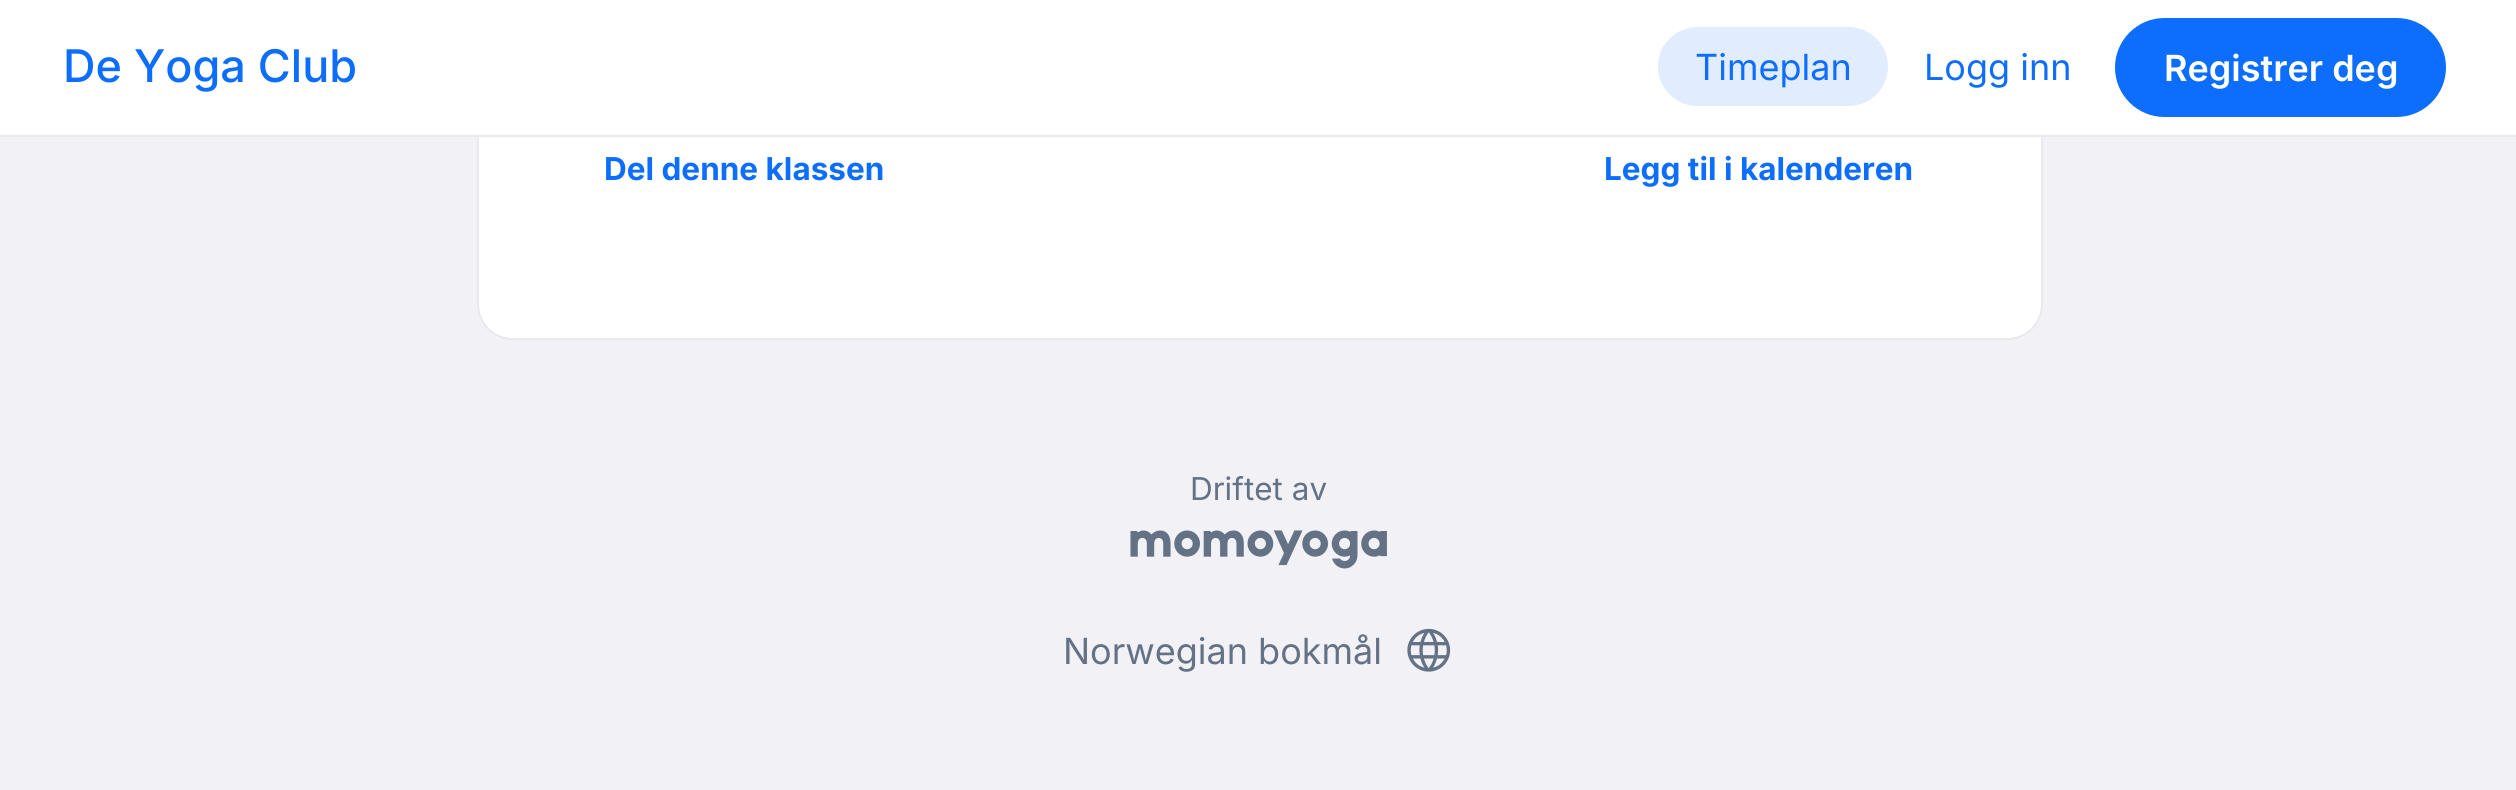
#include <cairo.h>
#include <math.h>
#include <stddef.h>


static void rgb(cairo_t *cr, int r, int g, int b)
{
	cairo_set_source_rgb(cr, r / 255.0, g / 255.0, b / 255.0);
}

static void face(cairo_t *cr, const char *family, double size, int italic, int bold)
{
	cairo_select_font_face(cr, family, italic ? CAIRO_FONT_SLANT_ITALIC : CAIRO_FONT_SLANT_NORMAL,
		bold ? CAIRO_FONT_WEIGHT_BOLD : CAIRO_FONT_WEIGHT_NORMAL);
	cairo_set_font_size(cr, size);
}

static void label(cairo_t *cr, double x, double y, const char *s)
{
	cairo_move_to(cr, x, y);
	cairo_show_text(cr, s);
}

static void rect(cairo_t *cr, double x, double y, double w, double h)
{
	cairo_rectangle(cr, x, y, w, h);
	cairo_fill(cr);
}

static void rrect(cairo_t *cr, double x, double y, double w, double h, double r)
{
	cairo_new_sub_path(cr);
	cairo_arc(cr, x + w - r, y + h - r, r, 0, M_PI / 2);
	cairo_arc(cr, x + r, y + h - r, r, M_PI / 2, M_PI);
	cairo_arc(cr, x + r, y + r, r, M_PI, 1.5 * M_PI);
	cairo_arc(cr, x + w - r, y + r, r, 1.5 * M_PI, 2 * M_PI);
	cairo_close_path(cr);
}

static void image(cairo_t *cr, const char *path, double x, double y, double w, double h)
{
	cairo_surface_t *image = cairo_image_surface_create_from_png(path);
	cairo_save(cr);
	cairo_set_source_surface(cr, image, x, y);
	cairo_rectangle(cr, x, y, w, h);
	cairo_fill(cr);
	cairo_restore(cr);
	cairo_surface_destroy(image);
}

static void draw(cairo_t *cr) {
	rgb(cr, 242, 241, 246);
	cairo_paint(cr);
	rgb(cr, 255, 255, 255);
	rrect(cr, 478, -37, 1564, 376, 35);
	cairo_fill_preserve(cr);
	rgb(cr, 232, 234, 237);
	cairo_stroke(cr);
	rgb(cr, 255, 255, 255);
	rect(cr, 0, 0, 2516, 135);
	rgb(cr, 232, 234, 237);
	rect(cr, 0, 135, 2516, 2);
	face(cr, "Inter Medium", 45, 0, 0);
	rgb(cr, 13, 110, 253);
	label(cr, 63, 82, "De Yoga Club");
	rgb(cr, 225, 237, 255);
	rrect(cr, 1658, 27, 230, 79, 39.5);
	cairo_fill(cr);
	face(cr, "Inter", 36, 0, 0);
	rgb(cr, 13, 110, 253);
	label(cr, 1695, 80, "Timeplan");
	label(cr, 1924, 80, "Logg inn");
	rrect(cr, 2117.5, 20.5, 326, 94, 47);
	cairo_fill_preserve(cr);
	cairo_set_line_width(cr, 5);
	cairo_stroke(cr);
	face(cr, "Inter SemiBold", 36, 0, 0);
	rgb(cr, 255, 255, 255);
	label(cr, 2164, 81, "Registrer deg");
	face(cr, "Inter", 31.5, 0, 1);
	rgb(cr, 13, 110, 253);
	label(cr, 604, 180, "Del denne klassen");
	label(cr, 1604, 180, "Legg til i kalenderen");
	face(cr, "Inter", 31.5, 0, 0);
	rgb(cr, 100, 114, 134);
	label(cr, 1190, 500, "Driftet av");
	image(cr, "image0.png", 1130, 530, 257, 39);
	face(cr, "Inter", 36, 0, 0);
	label(cr, 1063, 664, "Norwegian bokmål");
	image(cr, "image1.png", 1407, 628, 44, 44);
}

int main(void) {
	cairo_surface_t *surface = cairo_image_surface_create(CAIRO_FORMAT_RGB24, 2516, 790);
	cairo_t *cr = cairo_create(surface);
	cairo_font_options_t *options = cairo_font_options_create();
	cairo_font_options_set_hint_metrics(options, CAIRO_HINT_METRICS_OFF);
	cairo_font_options_set_hint_style(options, CAIRO_HINT_STYLE_NONE);
	cairo_set_font_options(cr, options);
	cairo_set_miter_limit(cr, 4);
	draw(cr);
	cairo_surface_write_to_png(surface, "render.png");
	cairo_font_options_destroy(options);
	cairo_destroy(cr);
	cairo_surface_destroy(surface);
	return 0;
}
